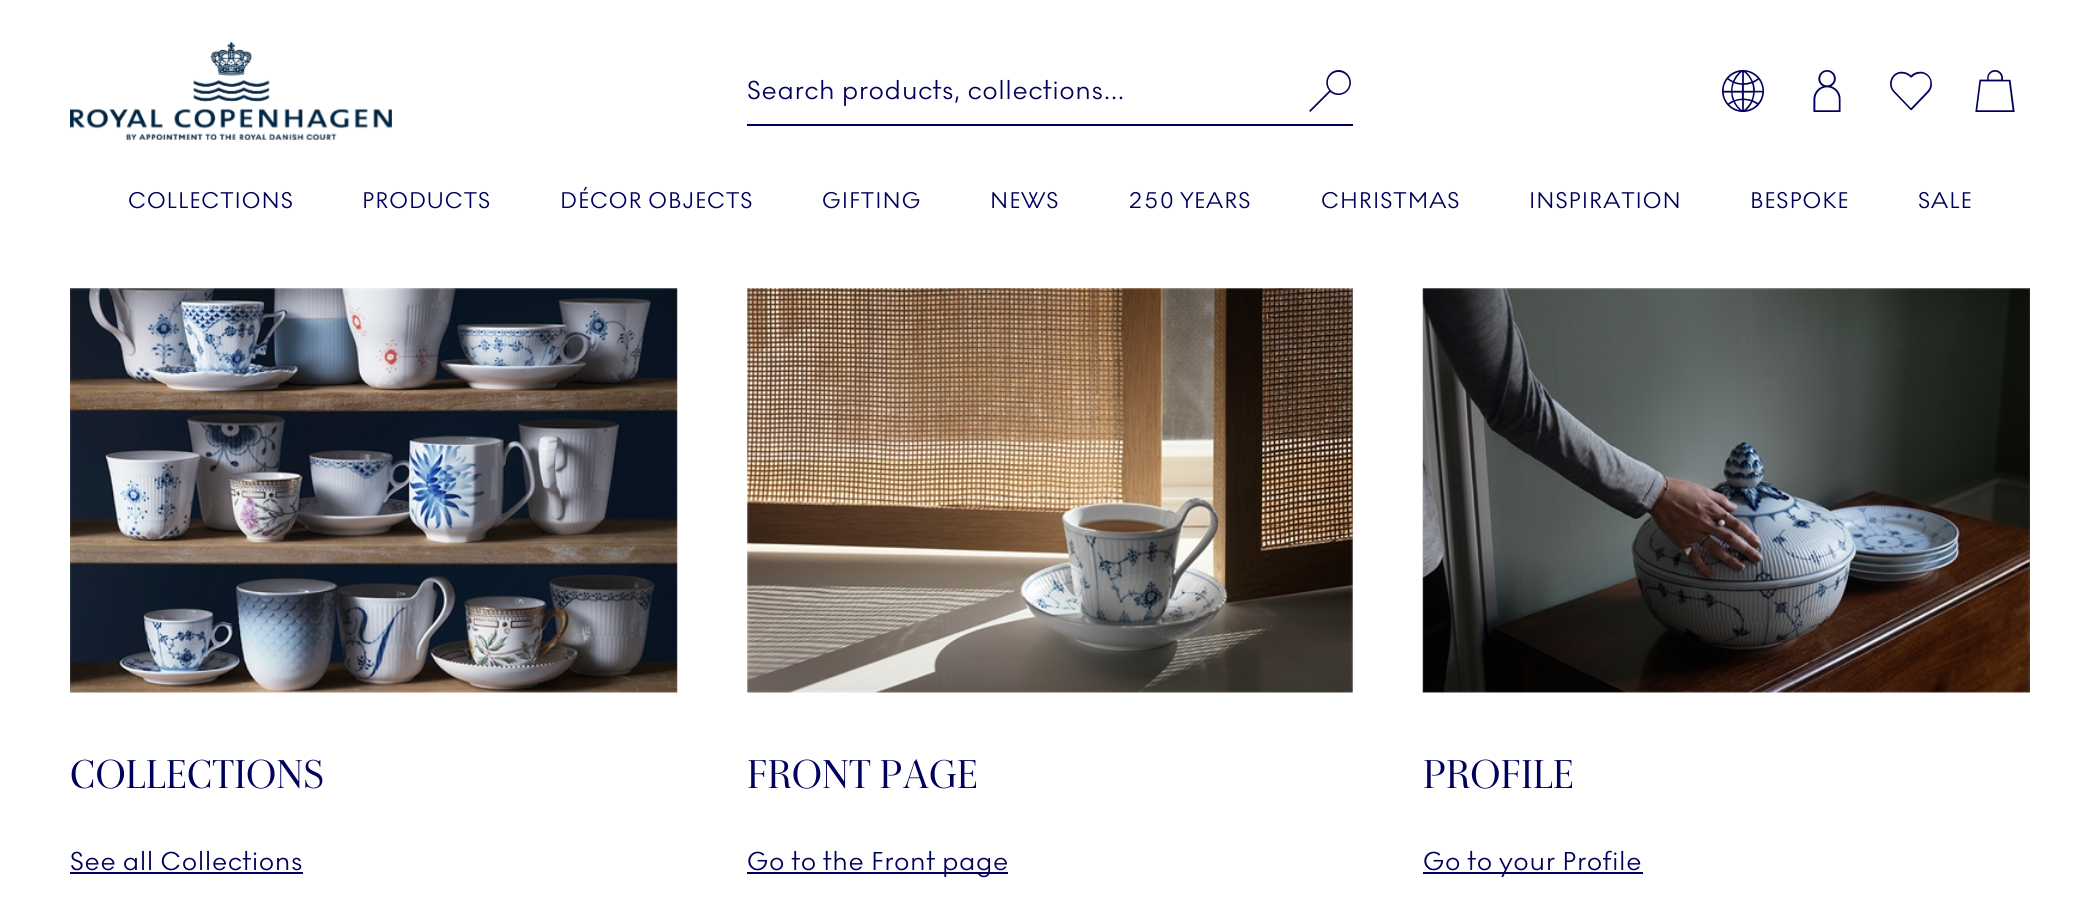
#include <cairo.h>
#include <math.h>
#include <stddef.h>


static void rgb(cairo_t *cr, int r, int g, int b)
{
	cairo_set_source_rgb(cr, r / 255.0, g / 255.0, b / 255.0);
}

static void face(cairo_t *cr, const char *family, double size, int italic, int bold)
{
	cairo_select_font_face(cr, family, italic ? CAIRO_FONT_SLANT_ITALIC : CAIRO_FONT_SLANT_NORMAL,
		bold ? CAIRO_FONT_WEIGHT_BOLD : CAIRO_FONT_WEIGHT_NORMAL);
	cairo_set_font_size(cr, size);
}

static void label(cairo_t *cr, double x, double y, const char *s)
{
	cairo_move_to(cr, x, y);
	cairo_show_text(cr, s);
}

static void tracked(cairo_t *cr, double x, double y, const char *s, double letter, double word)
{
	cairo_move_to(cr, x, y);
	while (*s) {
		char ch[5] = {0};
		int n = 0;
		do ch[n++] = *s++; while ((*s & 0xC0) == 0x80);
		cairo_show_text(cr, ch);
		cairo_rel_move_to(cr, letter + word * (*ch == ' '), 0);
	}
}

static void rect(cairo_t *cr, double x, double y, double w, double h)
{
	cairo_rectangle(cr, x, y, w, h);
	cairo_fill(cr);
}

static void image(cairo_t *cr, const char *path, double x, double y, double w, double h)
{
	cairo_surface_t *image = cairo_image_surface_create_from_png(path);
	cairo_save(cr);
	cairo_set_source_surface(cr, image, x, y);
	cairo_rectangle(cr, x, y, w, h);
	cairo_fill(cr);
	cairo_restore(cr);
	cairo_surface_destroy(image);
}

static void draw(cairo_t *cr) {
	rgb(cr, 255, 255, 255);
	cairo_paint(cr);
	image(cr, "image0.png", 70, 42, 322, 98);
	rgb(cr, 0, 0, 93);
	rect(cr, 747, 124, 606, 2);
	face(cr, "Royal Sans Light", 26.5, 0, 0);
	tracked(cr, 747, 99, "Search products, collections...", 1.05, 0);
	image(cr, "image1.png", 1309, 70, 42, 42);
	image(cr, "image2.png", 1722, 70, 42, 42);
	image(cr, "image3.png", 1813, 70, 28, 42);
	image(cr, "image4.png", 1890, 71, 42, 40);
	image(cr, "image5.png", 1975, 70, 40, 42);
	face(cr, "Royal Sans Light", 23.25, 0, 0);
	tracked(cr, 128, 208, "COLLECTIONS", 1, 0);
	tracked(cr, 362, 208, "PRODUCTS", 1, 0);
	tracked(cr, 560, 208, "DÉCOR OBJECTS", 1, 0);
	tracked(cr, 822, 208, "GIFTING", 1, 0);
	tracked(cr, 990, 208, "NEWS", 1, 0);
	tracked(cr, 1128, 208, "250 YEARS", 1, 0);
	tracked(cr, 1321, 208, "CHRISTMAS", 1, 0);
	tracked(cr, 1529, 208, "INSPIRATION", 1, 0);
	tracked(cr, 1750, 208, "BESPOKE", 1, 0);
	tracked(cr, 1918, 208, "SALE", 1, 0);
	image(cr, "image6.png", 70, 288, 608, 405);
	face(cr, "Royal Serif", 41, 0, 0);
	label(cr, 70, 788, "COLLECTIONS");
	face(cr, "Royal Sans Light", 26.5, 0, 0);
	tracked(cr, 70, 870, "See all Collections", 1.05, 0);
	rect(cr, 70, 872, 233, 2);
	image(cr, "image7.png", 747, 288, 606, 405);
	face(cr, "Royal Serif", 41, 0, 0);
	label(cr, 747, 788, "FRONT PAGE");
	rect(cr, 747, 872, 261, 2);
	face(cr, "Royal Sans Light", 26.5, 0, 0);
	tracked(cr, 747, 870, "Go to the Front page", 1.05, 0);
	image(cr, "image8.png", 1422, 288, 608, 405);
	face(cr, "Royal Serif", 41, 0, 0);
	label(cr, 1423, 788, "PROFILE");
	rect(cr, 1423, 872, 220, 2);
	face(cr, "Royal Sans Light", 26.5, 0, 0);
	tracked(cr, 1423, 870, "Go to your Profile", 1.05, 0);
}

int main(void) {
	cairo_surface_t *surface = cairo_image_surface_create(CAIRO_FORMAT_RGB24, 2099, 915);
	cairo_t *cr = cairo_create(surface);
	cairo_font_options_t *options = cairo_font_options_create();
	cairo_font_options_set_hint_metrics(options, CAIRO_HINT_METRICS_OFF);
	cairo_font_options_set_hint_style(options, CAIRO_HINT_STYLE_NONE);
	cairo_set_font_options(cr, options);
	cairo_set_miter_limit(cr, 4);
	draw(cr);
	cairo_surface_write_to_png(surface, "render.png");
	cairo_font_options_destroy(options);
	cairo_destroy(cr);
	cairo_surface_destroy(surface);
	return 0;
}
